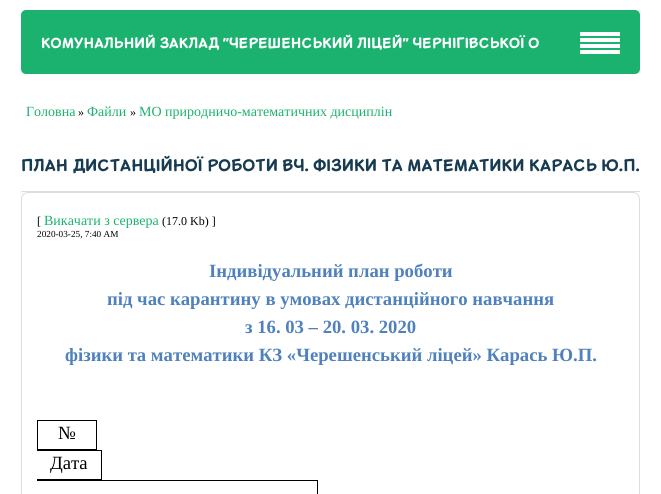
#include <cairo.h>
#include <math.h>
#include <stddef.h>


static void rgb(cairo_t *cr, int r, int g, int b)
{
	cairo_set_source_rgb(cr, r / 255.0, g / 255.0, b / 255.0);
}

static void face(cairo_t *cr, const char *family, double size, int italic, int bold)
{
	cairo_select_font_face(cr, family, italic ? CAIRO_FONT_SLANT_ITALIC : CAIRO_FONT_SLANT_NORMAL,
		bold ? CAIRO_FONT_WEIGHT_BOLD : CAIRO_FONT_WEIGHT_NORMAL);
	cairo_set_font_size(cr, size);
}

static void label(cairo_t *cr, double x, double y, const char *s)
{
	cairo_move_to(cr, x, y);
	cairo_show_text(cr, s);
}

static void rect(cairo_t *cr, double x, double y, double w, double h)
{
	cairo_rectangle(cr, x, y, w, h);
	cairo_fill(cr);
}

static void rrect(cairo_t *cr, double x, double y, double w, double h, double r)
{
	cairo_new_sub_path(cr);
	cairo_arc(cr, x + w - r, y + h - r, r, 0, M_PI / 2);
	cairo_arc(cr, x + r, y + h - r, r, M_PI / 2, M_PI);
	cairo_arc(cr, x + r, y + r, r, M_PI, 1.5 * M_PI);
	cairo_arc(cr, x + w - r, y + r, r, 1.5 * M_PI, 2 * M_PI);
	cairo_close_path(cr);
}

static void draw(cairo_t *cr) {
	rgb(cr, 255, 255, 255);
	cairo_paint(cr);
	rgb(cr, 26, 178, 110);
	rrect(cr, 21, 10, 619, 64, 5);
	cairo_fill(cr);
	face(cr, "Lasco", 14, 0, 1);
	rgb(cr, 255, 255, 255);
	label(cr, 41, 48, "КОМУНАЛЬНИЙ ЗАКЛАД \"ЧЕРЕШЕНСЬКИЙ ЛІЦЕЙ\" ЧЕРНІГІВСЬКОЇ О");
	rect(cr, 580, 32, 40, 4);
	rect(cr, 580, 38, 40, 4);
	rect(cr, 580, 44, 40, 4);
	rect(cr, 580, 50, 40, 4);
	face(cr, "Liberation Serif", 14, 0, 0);
	rgb(cr, 26, 178, 110);
	label(cr, 26, 116, "Головна");
	face(cr, "Liberation Serif", 12, 0, 0);
	rgb(cr, 0, 0, 0);
	label(cr, 78, 116, "»");
	face(cr, "Liberation Serif", 14, 0, 0);
	rgb(cr, 26, 178, 110);
	label(cr, 87, 116, "Файли");
	face(cr, "Liberation Serif", 12, 0, 0);
	rgb(cr, 0, 0, 0);
	label(cr, 130, 116, "»");
	face(cr, "Liberation Serif", 14, 0, 0);
	rgb(cr, 26, 178, 110);
	label(cr, 139, 116, "МО природничо-математичних дисциплін");
	rgb(cr, 221, 221, 221);
	rect(cr, 21, 191, 619, 1);
	face(cr, "Lasco", 16, 0, 1);
	rgb(cr, 23, 59, 81);
	label(cr, 21, 171, "ПЛАН ДИСТАНЦІЙНОЇ РОБОТИ ВЧ. ФІЗИКИ ТА МАТЕМАТИКИ КАРАСЬ Ю.П.");
	rrect(cr, 21.5, 192.5, 618, 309, 6.5);
	rgb(cr, 221, 221, 221);
	cairo_set_line_width(cr, 1);
	cairo_stroke(cr);
	face(cr, "Liberation Serif", 12, 0, 0);
	rgb(cr, 0, 0, 0);
	label(cr, 37, 225, "[");
	face(cr, "Liberation Serif", 14, 0, 0);
	rgb(cr, 26, 178, 110);
	label(cr, 44, 225, "Викачати з сервера");
	face(cr, "Liberation Serif", 12, 0, 0);
	rgb(cr, 0, 0, 0);
	label(cr, 162, 225, "(17.0 Kb) ]");
	face(cr, "Liberation Serif", 9.25, 0, 0);
	label(cr, 37, 237, "2020-03-25, 7:40 AM");
	face(cr, "Liberation Serif", 18.7, 0, 1);
	rgb(cr, 79, 129, 189);
	label(cr, 209, 277, "Індивідуальний план роботи");
	label(cr, 107, 305, "під час карантину в умовах дистанційного навчання");
	label(cr, 245, 333, "з 16. 03 – 20. 03. 2020");
	label(cr, 65, 361, "фізики та математики КЗ «Черешенський ліцей» Карась Ю.П.");
	cairo_rectangle(cr, 37.5, 420.5, 59, 29);
	rgb(cr, 0, 0, 0);
	cairo_stroke(cr);
	face(cr, "Liberation Serif", 18.7, 0, 0);
	label(cr, 58, 439, "№");
	rect(cr, 37, 450, 65, 1);
	rect(cr, 101, 450, 1, 30);
	rect(cr, 37, 479, 65, 1);
	label(cr, 50, 469, "Дата");
	rect(cr, 37, 480, 281, 1);
	rect(cr, 317, 480, 1, 14);
}

int main(void) {
	cairo_surface_t *surface = cairo_image_surface_create(CAIRO_FORMAT_RGB24, 661, 494);
	cairo_t *cr = cairo_create(surface);
	cairo_font_options_t *options = cairo_font_options_create();
	cairo_font_options_set_hint_metrics(options, CAIRO_HINT_METRICS_OFF);
	cairo_font_options_set_hint_style(options, CAIRO_HINT_STYLE_NONE);
	cairo_set_font_options(cr, options);
	cairo_set_miter_limit(cr, 4);
	draw(cr);
	cairo_surface_write_to_png(surface, "render.png");
	cairo_font_options_destroy(options);
	cairo_destroy(cr);
	cairo_surface_destroy(surface);
	return 0;
}
